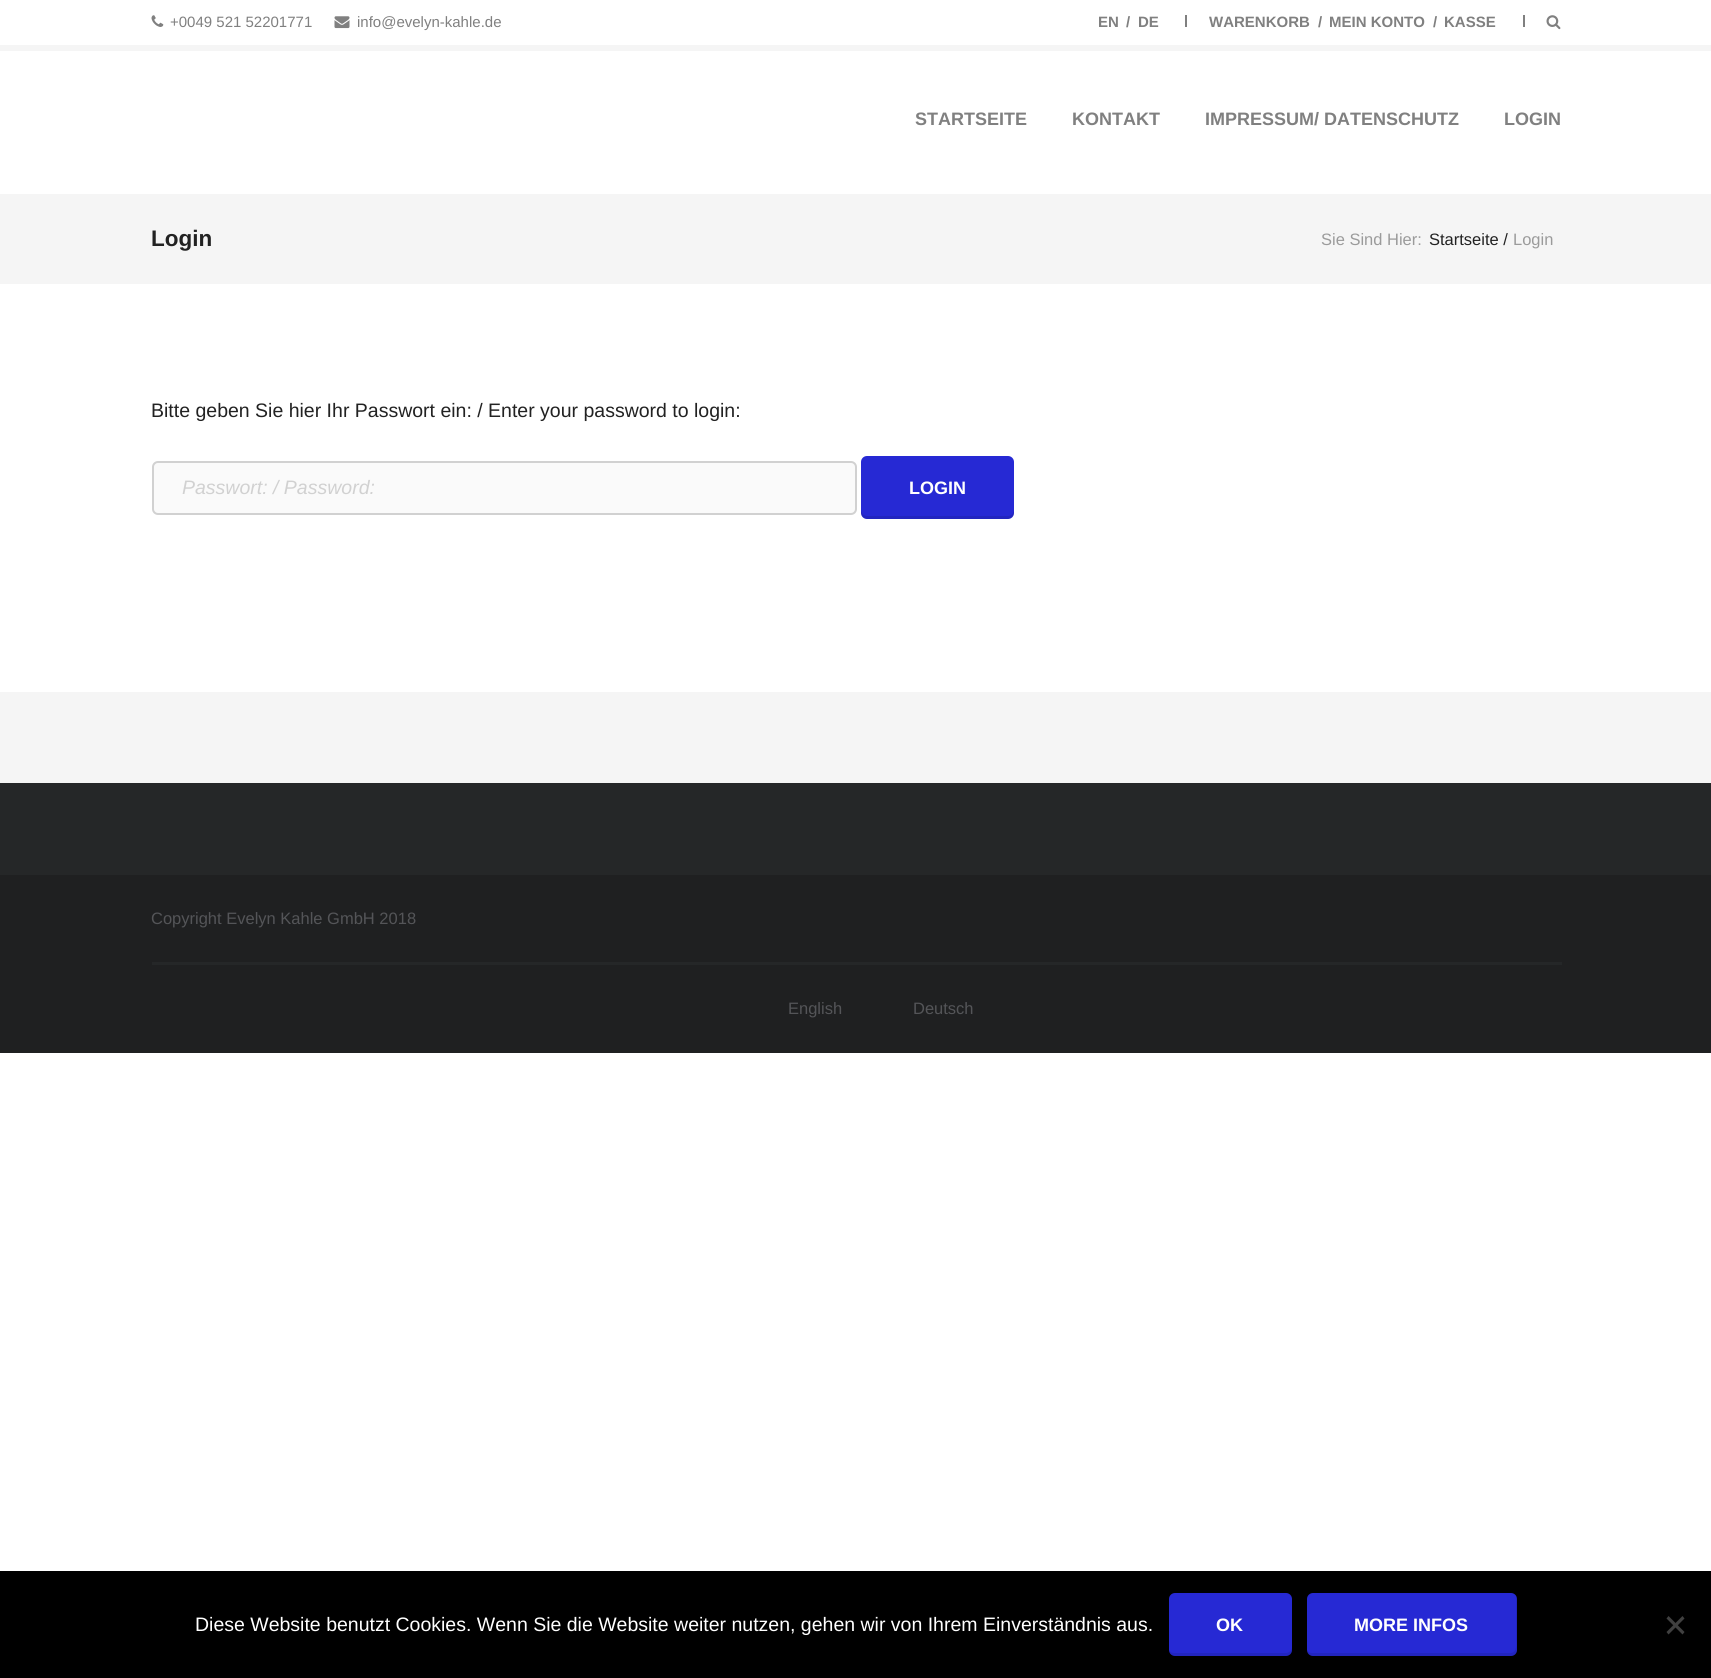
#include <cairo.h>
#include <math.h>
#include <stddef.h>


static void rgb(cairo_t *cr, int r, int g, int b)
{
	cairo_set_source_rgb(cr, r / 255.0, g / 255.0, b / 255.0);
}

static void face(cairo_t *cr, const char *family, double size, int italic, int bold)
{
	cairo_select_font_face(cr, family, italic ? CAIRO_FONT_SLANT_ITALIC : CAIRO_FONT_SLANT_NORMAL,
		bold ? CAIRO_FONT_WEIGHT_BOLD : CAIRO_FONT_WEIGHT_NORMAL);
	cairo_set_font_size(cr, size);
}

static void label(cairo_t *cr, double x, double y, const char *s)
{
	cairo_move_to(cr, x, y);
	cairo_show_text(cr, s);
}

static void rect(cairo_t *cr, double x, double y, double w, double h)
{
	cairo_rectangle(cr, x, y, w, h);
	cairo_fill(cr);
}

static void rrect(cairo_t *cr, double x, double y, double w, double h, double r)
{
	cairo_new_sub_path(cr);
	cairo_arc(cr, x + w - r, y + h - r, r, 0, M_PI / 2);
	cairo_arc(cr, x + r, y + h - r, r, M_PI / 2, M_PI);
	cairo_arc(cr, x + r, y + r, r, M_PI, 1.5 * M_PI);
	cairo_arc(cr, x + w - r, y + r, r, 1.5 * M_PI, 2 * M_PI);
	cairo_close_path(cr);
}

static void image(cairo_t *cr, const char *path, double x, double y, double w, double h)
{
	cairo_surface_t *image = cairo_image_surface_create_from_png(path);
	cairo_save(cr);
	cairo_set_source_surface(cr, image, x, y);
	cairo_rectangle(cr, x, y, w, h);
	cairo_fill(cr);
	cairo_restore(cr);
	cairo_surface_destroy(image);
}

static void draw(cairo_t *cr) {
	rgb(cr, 255, 255, 255);
	cairo_paint(cr);
	rgb(cr, 245, 245, 245);
	rect(cr, 0, 45, 1711, 6);
	image(cr, "image0.png", 151, 15, 13, 12);
	face(cr, "Liberation Sans", 15, 0, 0);
	rgb(cr, 128, 128, 128);
	label(cr, 170, 27, "+0049 521 52201771");
	image(cr, "image1.png", 334, 16, 16, 13);
	label(cr, 357, 27, "info@evelyn-kahle.de");
	face(cr, "Liberation Sans", 15, 0, 1);
	label(cr, 1098, 27, "EN");
	label(cr, 1126, 27, "/");
	label(cr, 1138, 27, "DE");
	rect(cr, 1185, 15, 2, 12);
	label(cr, 1209, 27, "WARENKORB");
	label(cr, 1318, 27, "/");
	label(cr, 1329, 27, "MEIN KONTO");
	label(cr, 1433, 27, "/");
	label(cr, 1444, 27, "KASSE");
	rect(cr, 1523, 15, 2, 12);
	image(cr, "image2.png", 1546, 15, 15, 15);
	face(cr, "Liberation Sans", 18, 0, 1);
	label(cr, 915, 125, "STARTSEITE");
	label(cr, 1072, 125, "KONTAKT");
	label(cr, 1205, 125, "IMPRESSUM/ DATENSCHUTZ");
	label(cr, 1504, 125, "LOGIN");
	rgb(cr, 245, 245, 245);
	rect(cr, 0, 194, 1711, 90);
	face(cr, "Liberation Sans", 22.5, 0, 1);
	rgb(cr, 34, 34, 34);
	label(cr, 151, 246, "Login");
	face(cr, "Liberation Sans", 16.5, 0, 0);
	rgb(cr, 155, 155, 155);
	label(cr, 1321, 245, "Sie Sind Hier:");
	rgb(cr, 34, 34, 34);
	label(cr, 1429, 245, "Startseite /");
	rgb(cr, 155, 155, 155);
	label(cr, 1513, 245, "Login");
	face(cr, "Liberation Sans", 19.5, 0, 0);
	rgb(cr, 34, 34, 34);
	label(cr, 151, 417, "Bitte geben Sie hier Ihr Passwort ein: / Enter your password to login:");
	rgb(cr, 250, 250, 250);
	rrect(cr, 153, 462, 703, 52, 5);
	cairo_fill_preserve(cr);
	rgb(cr, 209, 209, 209);
	cairo_stroke(cr);
	face(cr, "Liberation Sans", 19.5, 1, 0);
	label(cr, 182, 494, "Passwort: / Password:");
	rgb(cr, 38, 41, 212);
	rrect(cr, 861, 456, 153, 63, 6);
	cairo_fill(cr);
	cairo_set_source_rgba(cr, 0, 0, 0, 0.1);
	cairo_new_path(cr);
	cairo_move_to(cr, 861, 510);
	cairo_line_to(cr, 861, 513);
	cairo_curve_to(cr, 861, 516, 864, 519, 867, 519);
	cairo_line_to(cr, 1008, 519);
	cairo_curve_to(cr, 1011, 519, 1014, 516, 1014, 513);
	cairo_line_to(cr, 1014, 510);
	cairo_curve_to(cr, 1014, 513, 1011, 516, 1008, 516);
	cairo_line_to(cr, 867, 516);
	cairo_curve_to(cr, 864, 516, 861, 513, 861, 510);
	cairo_close_path(cr);
	cairo_fill(cr);
	face(cr, "Liberation Sans", 18, 0, 1);
	rgb(cr, 255, 255, 255);
	label(cr, 909, 494, "LOGIN");
	rgb(cr, 245, 245, 245);
	rect(cr, 0, 692, 1711, 91);
	rgb(cr, 37, 39, 40);
	rect(cr, 0, 783, 1711, 92);
	rgb(cr, 31, 32, 33);
	rect(cr, 0, 875, 1711, 178);
	face(cr, "Liberation Sans", 16.5, 0, 0);
	rgb(cr, 84, 85, 88);
	label(cr, 151, 924, "Copyright Evelyn Kahle GmbH 2018");
	rgb(cr, 37, 39, 40);
	rect(cr, 152, 962, 1410, 3);
	rgb(cr, 84, 85, 88);
	label(cr, 788, 1014, "English");
	label(cr, 913, 1014, "Deutsch");
	rgb(cr, 0, 0, 0);
	rect(cr, 0, 1571, 1711, 107);
	face(cr, "Liberation Sans", 19.5, 0, 0);
	rgb(cr, 255, 255, 255);
	label(cr, 195, 1631, "Diese Website benutzt Cookies. Wenn Sie die Website weiter nutzen, gehen wir von Ihrem Einverständnis aus.");
	rgb(cr, 38, 41, 212);
	rrect(cr, 1169, 1593, 123, 63, 6);
	cairo_fill(cr);
	cairo_set_source_rgba(cr, 0, 0, 0, 0.1);
	cairo_new_path(cr);
	cairo_move_to(cr, 1169, 1650);
	cairo_curve_to(cr, 1169, 1653, 1172, 1656, 1175, 1656);
	cairo_line_to(cr, 1286, 1656);
	cairo_curve_to(cr, 1289, 1656, 1292, 1653, 1292, 1650);
	cairo_line_to(cr, 1292, 1647);
	cairo_curve_to(cr, 1292, 1650, 1289, 1653, 1286, 1653);
	cairo_line_to(cr, 1174, 1653);
	cairo_curve_to(cr, 1172, 1653, 1170, 1652, 1169, 1650);
	cairo_close_path(cr);
	cairo_fill(cr);
	face(cr, "Liberation Sans", 18, 0, 1);
	rgb(cr, 255, 255, 255);
	label(cr, 1216, 1631, "OK");
	rgb(cr, 38, 41, 212);
	rrect(cr, 1307, 1593, 210, 63, 6);
	cairo_fill(cr);
	cairo_set_source_rgba(cr, 0, 0, 0, 0.1);
	cairo_new_path(cr);
	cairo_move_to(cr, 1307, 1650);
	cairo_curve_to(cr, 1307, 1653, 1310, 1656, 1313, 1656);
	cairo_line_to(cr, 1511, 1656);
	cairo_curve_to(cr, 1514, 1656, 1517, 1653, 1517, 1650);
	cairo_line_to(cr, 1517, 1599);
	cairo_curve_to(cr, 1517, 1598, 1517, 1597, 1516, 1596);
	cairo_line_to(cr, 1516, 1638);
	cairo_curve_to(cr, 1516, 1643, 1518, 1653, 1510, 1653);
	cairo_line_to(cr, 1312, 1653);
	cairo_curve_to(cr, 1310, 1653, 1308, 1652, 1307, 1650);
	cairo_close_path(cr);
	cairo_fill(cr);
	rgb(cr, 255, 255, 255);
	label(cr, 1354, 1631, "MORE INFOS");
	rgb(cr, 64, 64, 64);
	cairo_new_path(cr);
	cairo_move_to(cr, 1682.5, 1616);
	cairo_line_to(cr, 1684.5, 1618.5);
	cairo_line_to(cr, 1668.5, 1634.5);
	cairo_line_to(cr, 1666.5, 1632);
	cairo_close_path(cr);
	cairo_fill(cr);
	cairo_new_path(cr);
	cairo_move_to(cr, 1666.5, 1618.5);
	cairo_line_to(cr, 1668.5, 1616);
	cairo_line_to(cr, 1684.5, 1632);
	cairo_line_to(cr, 1682.5, 1634.5);
	cairo_close_path(cr);
	cairo_fill(cr);
}

int main(void) {
	cairo_surface_t *surface = cairo_image_surface_create(CAIRO_FORMAT_RGB24, 1711, 1678);
	cairo_t *cr = cairo_create(surface);
	cairo_font_options_t *options = cairo_font_options_create();
	cairo_font_options_set_hint_metrics(options, CAIRO_HINT_METRICS_OFF);
	cairo_font_options_set_hint_style(options, CAIRO_HINT_STYLE_NONE);
	cairo_set_font_options(cr, options);
	cairo_set_miter_limit(cr, 4);
	draw(cr);
	cairo_surface_write_to_png(surface, "render.png");
	cairo_font_options_destroy(options);
	cairo_destroy(cr);
	cairo_surface_destroy(surface);
	return 0;
}
